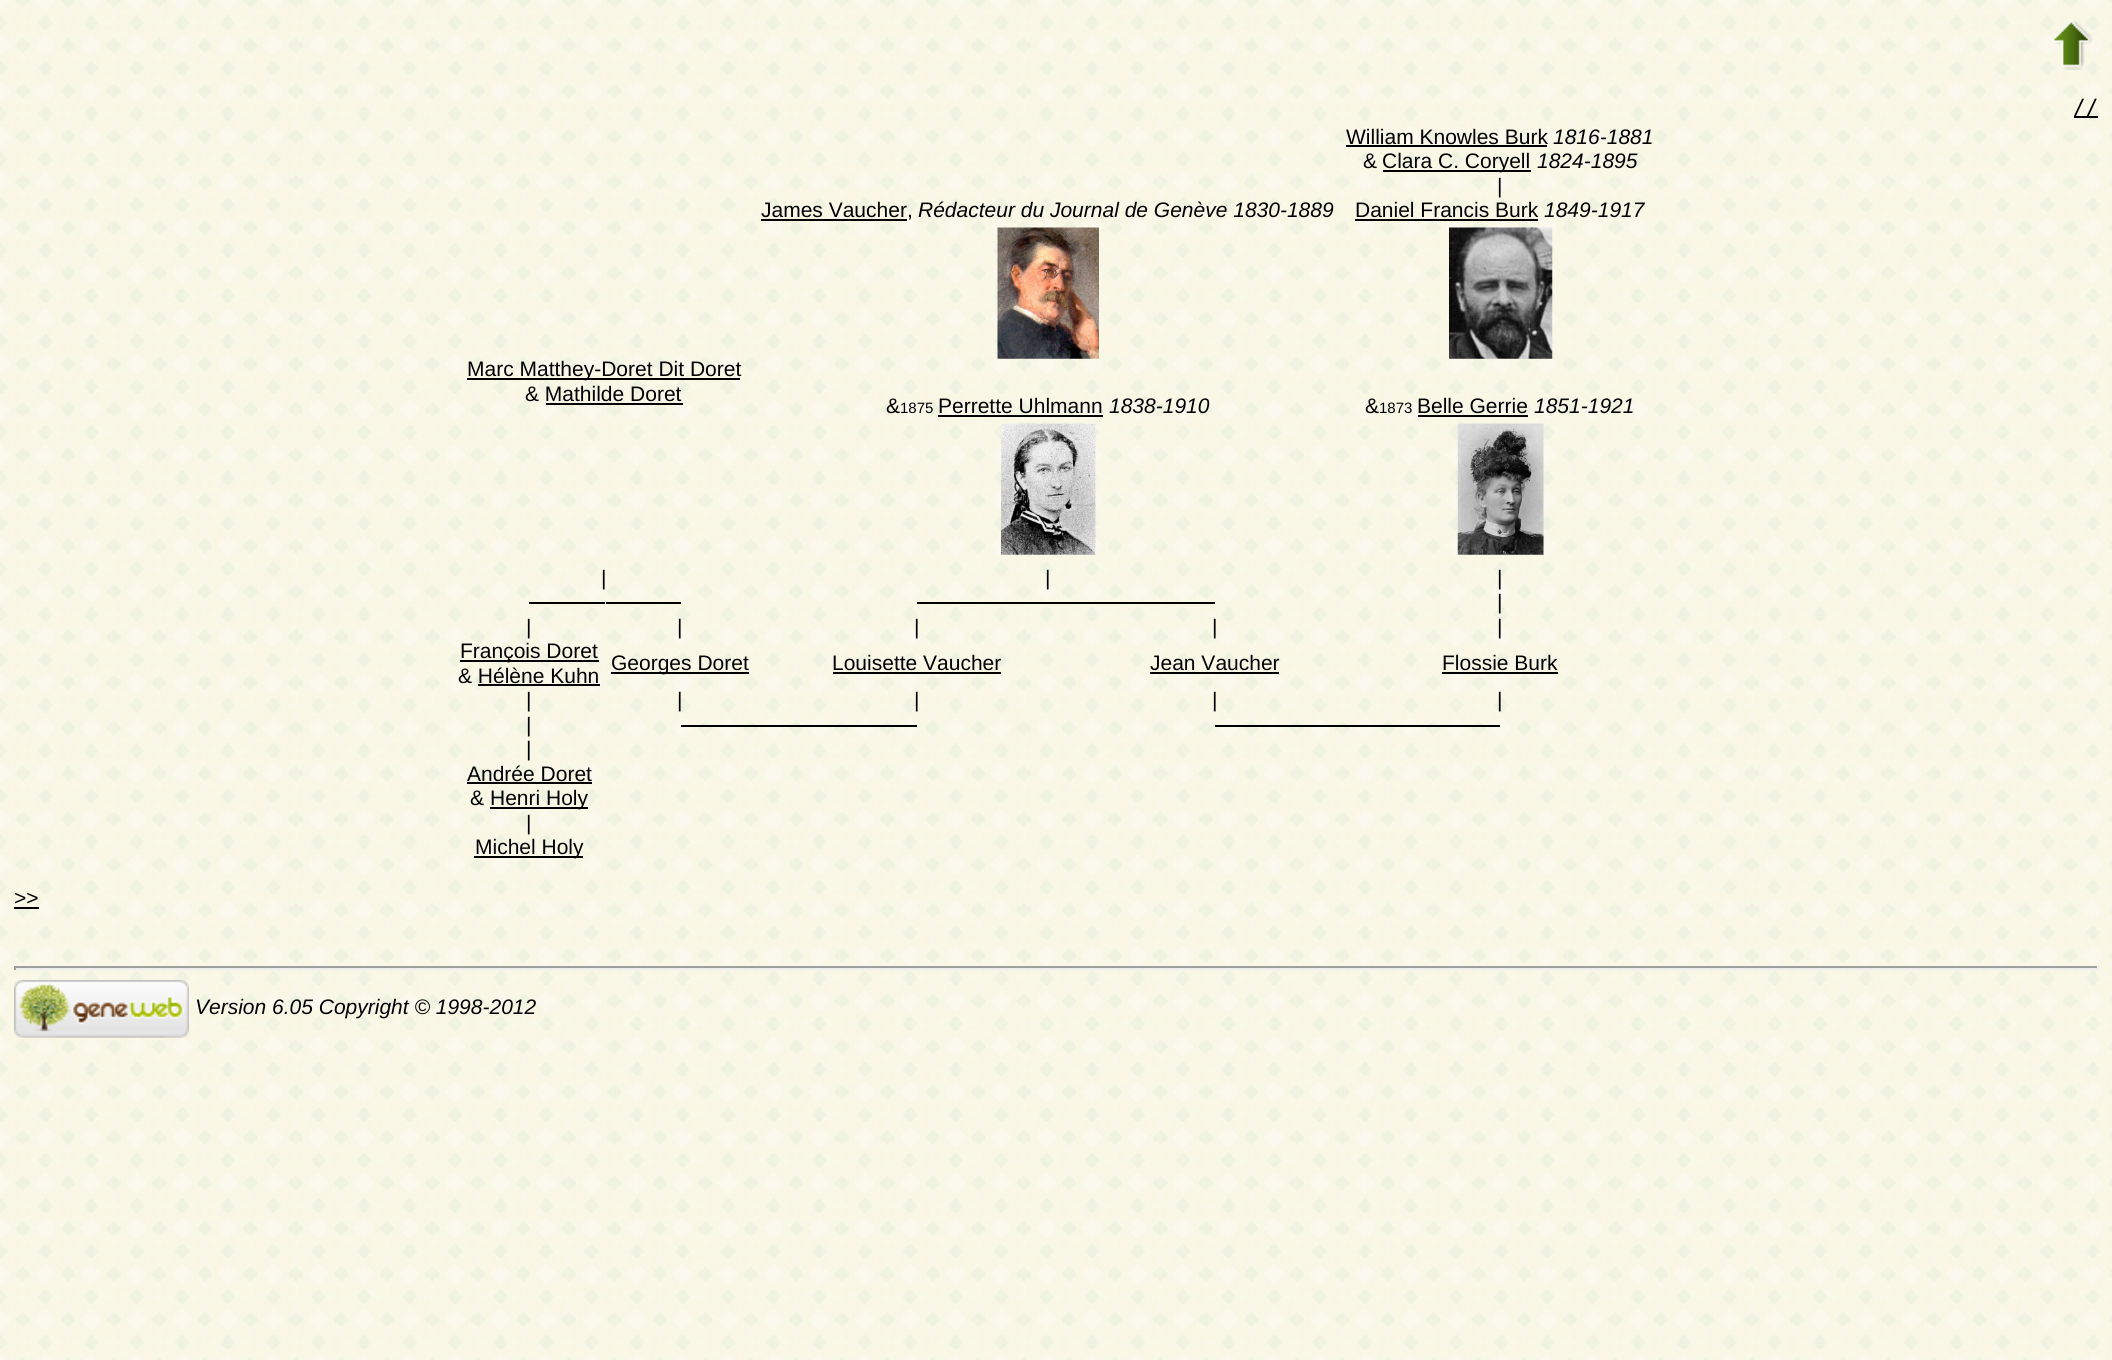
#include <cairo.h>
#include <math.h>
#include <stddef.h>


static void rgb(cairo_t *cr, int r, int g, int b)
{
	cairo_set_source_rgb(cr, r / 255.0, g / 255.0, b / 255.0);
}

static void face(cairo_t *cr, const char *family, double size, int italic, int bold)
{
	cairo_select_font_face(cr, family, italic ? CAIRO_FONT_SLANT_ITALIC : CAIRO_FONT_SLANT_NORMAL,
		bold ? CAIRO_FONT_WEIGHT_BOLD : CAIRO_FONT_WEIGHT_NORMAL);
	cairo_set_font_size(cr, size);
}

static void label(cairo_t *cr, double x, double y, const char *s)
{
	cairo_move_to(cr, x, y);
	cairo_show_text(cr, s);
}

static void rect(cairo_t *cr, double x, double y, double w, double h)
{
	cairo_rectangle(cr, x, y, w, h);
	cairo_fill(cr);
}

static void image(cairo_t *cr, const char *path, double x, double y, double w, double h)
{
	cairo_surface_t *image = cairo_image_surface_create_from_png(path);
	cairo_save(cr);
	cairo_set_source_surface(cr, image, x, y);
	cairo_rectangle(cr, x, y, w, h);
	cairo_fill(cr);
	cairo_restore(cr);
	cairo_surface_destroy(image);
}

static void draw(cairo_t *cr) {
	rgb(cr, 255, 255, 255);
	cairo_paint(cr);
	image(cr, "image0.png", 0, 0, 2112, 1360);
	image(cr, "image1.png", 2054, 20, 39, 50);
	face(cr, "DejaVu Sans Mono", 21, 0, 0);
	rgb(cr, 0, 0, 0);
	label(cr, 2073, 114, "//");
	rect(cr, 2074, 116, 24, 2);
	face(cr, "Liberation Sans", 21, 0, 0);
	label(cr, 1346, 144, "William Knowles Burk");
	rect(cr, 1346, 145, 201, 2);
	face(cr, "Liberation Sans", 21, 1, 0);
	label(cr, 1553, 144, "1816-1881");
	face(cr, "Liberation Sans", 21, 0, 0);
	label(cr, 1363, 168, "&");
	rect(cr, 1383, 170, 148, 2);
	label(cr, 1382, 168, "Clara C. Coryell");
	face(cr, "Liberation Sans", 21, 1, 0);
	label(cr, 1537, 168, "1824-1895");
	face(cr, "Liberation Sans", 21, 0, 0);
	label(cr, 1497, 193, "|");
	rect(cr, 467, 378, 273, 2);
	label(cr, 467, 376, "Marc Matthey-Doret Dit Doret");
	label(cr, 525, 401, "& Mathilde Doret");
	rect(cr, 546, 403, 137, 2);
	rect(cr, 761, 219, 146, 2);
	label(cr, 761, 217, "James Vaucher,");
	face(cr, "Liberation Sans", 21, 1, 0);
	label(cr, 918, 217, "Rédacteur du Journal de Genève 1830-1889");
	image(cr, "image2.png", 997, 227, 102, 132);
	face(cr, "Liberation Sans", 21, 0, 0);
	label(cr, 886, 413, "&");
	face(cr, "Liberation Sans", 15, 0, 0);
	label(cr, 900, 413, "1875");
	face(cr, "Liberation Sans", 21, 0, 0);
	label(cr, 938, 413, "Perrette Uhlmann");
	rect(cr, 938, 415, 165, 2);
	face(cr, "Liberation Sans", 21, 1, 0);
	label(cr, 1109, 413, "1838-1910");
	image(cr, "image3.png", 1001, 423, 95, 132);
	face(cr, "Liberation Sans", 21, 0, 0);
	label(cr, 1355, 217, "Daniel Francis Burk");
	rect(cr, 1355, 219, 183, 2);
	face(cr, "Liberation Sans", 21, 1, 0);
	label(cr, 1544, 217, "1849-1917");
	image(cr, "image4.png", 1449, 227, 104, 132);
	face(cr, "Liberation Sans", 21, 0, 0);
	label(cr, 1365, 413, "&");
	face(cr, "Liberation Sans", 15, 0, 0);
	label(cr, 1379, 413, "1873");
	face(cr, "Liberation Sans", 21, 0, 0);
	label(cr, 1417, 413, "Belle Gerrie");
	rect(cr, 1418, 415, 110, 2);
	face(cr, "Liberation Sans", 21, 1, 0);
	label(cr, 1534, 413, "1851-1921");
	image(cr, "image5.png", 1457, 423, 87, 132);
	face(cr, "Liberation Sans", 21, 0, 0);
	label(cr, 601, 585, "|");
	label(cr, 1045, 585, "|");
	label(cr, 1497, 585, "|");
	rect(cr, 529, 602, 76, 2);
	rect(cr, 606, 602, 75, 2);
	rect(cr, 917, 602, 298, 2);
	label(cr, 1497, 609, "|");
	label(cr, 526, 634, "|");
	label(cr, 677, 634, "|");
	label(cr, 914, 634, "|");
	label(cr, 1212, 634, "|");
	label(cr, 1497, 634, "|");
	rect(cr, 460, 660, 139, 2);
	label(cr, 460, 658, "François Doret");
	label(cr, 458, 683, "& Hélène Kuhn");
	rect(cr, 478, 684, 122, 2);
	rect(cr, 611, 672, 138, 2);
	label(cr, 611, 670, "Georges Doret");
	label(cr, 832, 670, "Louisette Vaucher");
	rect(cr, 833, 672, 168, 2);
	label(cr, 1150, 670, "Jean Vaucher");
	rect(cr, 1150, 672, 129, 2);
	label(cr, 1442, 670, "Flossie Burk");
	rect(cr, 1442, 672, 116, 2);
	label(cr, 526, 707, "|");
	label(cr, 677, 707, "|");
	label(cr, 914, 707, "|");
	label(cr, 1212, 707, "|");
	label(cr, 1497, 707, "|");
	label(cr, 526, 732, "|");
	rect(cr, 681, 725, 236, 2);
	rect(cr, 1215, 725, 285, 2);
	label(cr, 526, 756, "|");
	label(cr, 467, 781, "Andrée Doret");
	rect(cr, 467, 782, 125, 2);
	label(cr, 470, 805, "&");
	rect(cr, 490, 807, 98, 2);
	label(cr, 490, 805, "Henri Holy");
	label(cr, 526, 830, "|");
	rect(cr, 474, 856, 109, 2);
	label(cr, 475, 854, "Michel Holy");
	label(cr, 14, 905, ">>");
	rect(cr, 14, 907, 25, 2);
	rgb(cr, 159, 159, 159);
	rect(cr, 14, 966, 2084, 2);
	rgb(cr, 238, 238, 238);
	rect(cr, 2097, 966, 2, 4);
	rect(cr, 14, 968, 2084, 2);
	rgb(cr, 159, 159, 159);
	rect(cr, 14, 966, 2, 4);
	image(cr, "image6.png", 14, 980, 175, 58);
	face(cr, "Liberation Sans", 21, 1, 0);
	rgb(cr, 0, 0, 0);
	label(cr, 195, 1014, "Version 6.05 Copyright © 1998-2012");
}

int main(void) {
	cairo_surface_t *surface = cairo_image_surface_create(CAIRO_FORMAT_RGB24, 2112, 1360);
	cairo_t *cr = cairo_create(surface);
	cairo_font_options_t *options = cairo_font_options_create();
	cairo_font_options_set_hint_metrics(options, CAIRO_HINT_METRICS_OFF);
	cairo_font_options_set_hint_style(options, CAIRO_HINT_STYLE_NONE);
	cairo_set_font_options(cr, options);
	cairo_set_miter_limit(cr, 4);
	draw(cr);
	cairo_surface_write_to_png(surface, "render.png");
	cairo_font_options_destroy(options);
	cairo_destroy(cr);
	cairo_surface_destroy(surface);
	return 0;
}
